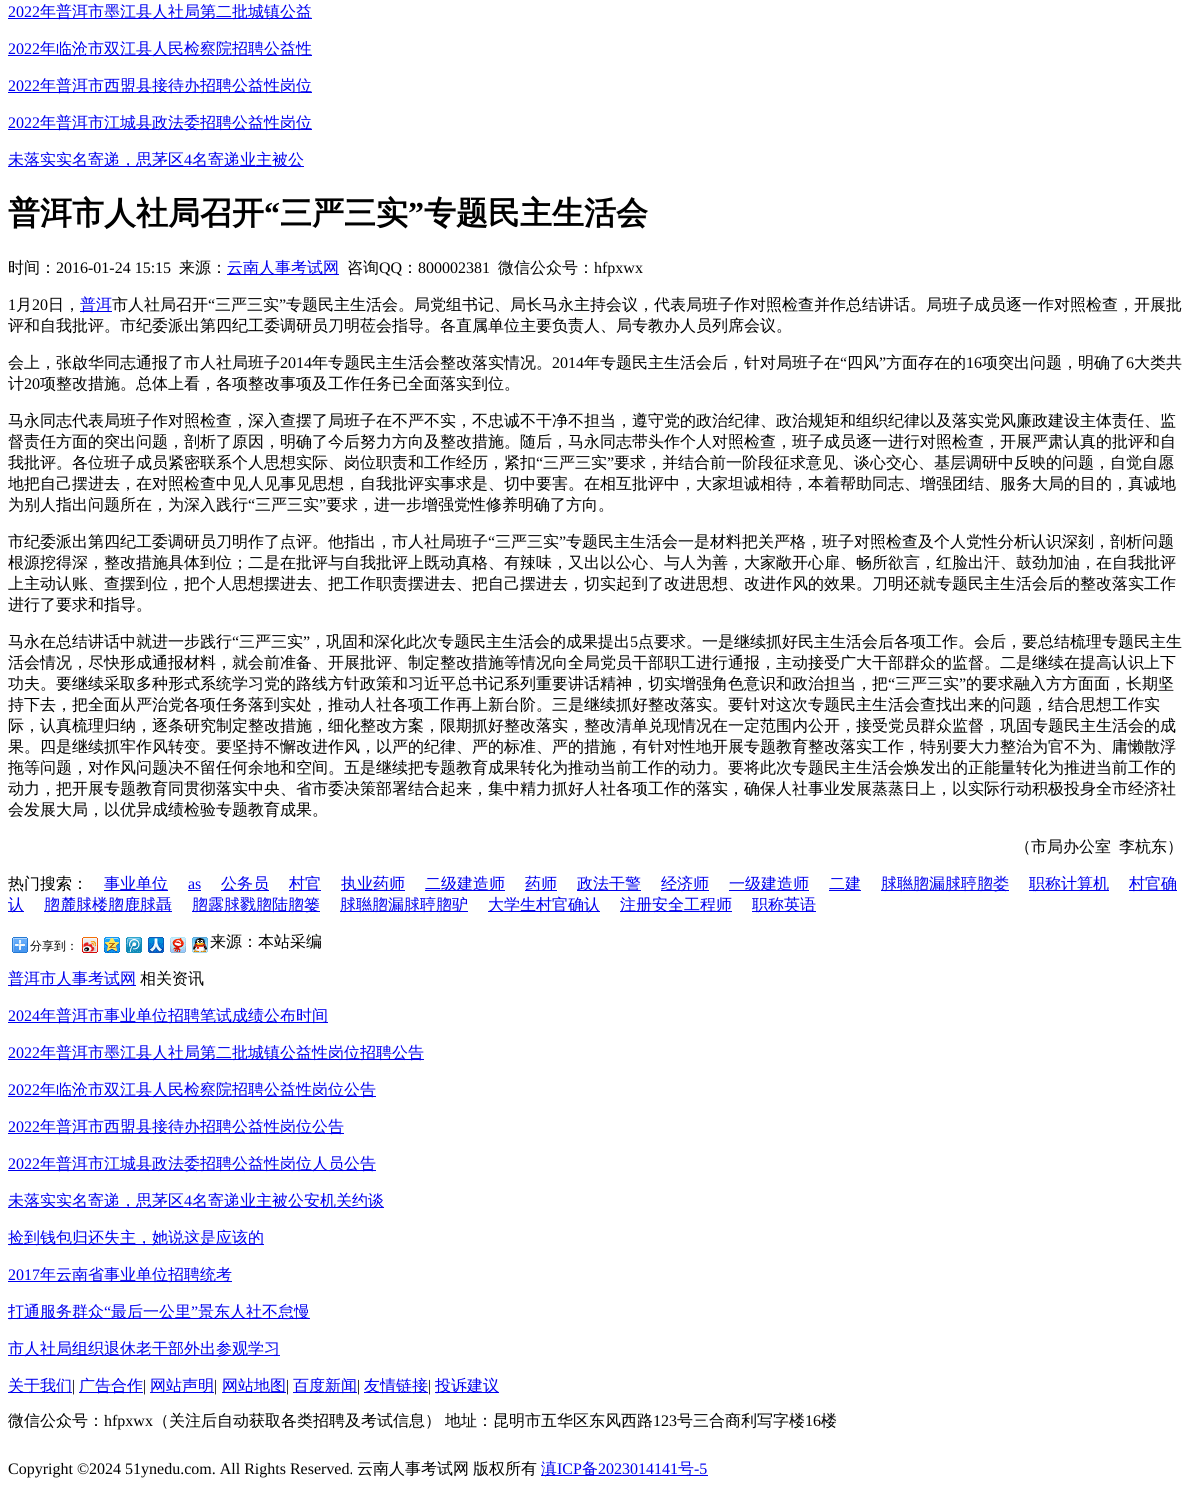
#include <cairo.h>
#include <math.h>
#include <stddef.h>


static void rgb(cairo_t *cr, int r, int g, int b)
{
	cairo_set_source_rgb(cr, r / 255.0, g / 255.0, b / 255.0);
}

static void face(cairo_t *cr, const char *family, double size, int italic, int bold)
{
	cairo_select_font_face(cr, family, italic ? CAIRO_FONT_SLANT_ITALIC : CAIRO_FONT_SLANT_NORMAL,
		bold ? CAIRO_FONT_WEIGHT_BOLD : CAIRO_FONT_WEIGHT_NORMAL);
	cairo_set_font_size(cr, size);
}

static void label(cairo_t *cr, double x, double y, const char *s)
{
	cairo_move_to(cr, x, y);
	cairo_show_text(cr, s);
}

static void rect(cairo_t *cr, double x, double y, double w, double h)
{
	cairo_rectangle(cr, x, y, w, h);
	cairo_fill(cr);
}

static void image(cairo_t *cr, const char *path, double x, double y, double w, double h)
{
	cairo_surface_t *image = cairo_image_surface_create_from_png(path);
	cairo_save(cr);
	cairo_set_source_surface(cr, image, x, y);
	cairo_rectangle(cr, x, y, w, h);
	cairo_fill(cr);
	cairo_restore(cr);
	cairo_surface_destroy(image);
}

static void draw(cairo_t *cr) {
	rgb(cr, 255, 255, 255);
	cairo_paint(cr);
	face(cr, "Liberation Serif", 16, 0, 0);
	rgb(cr, 0, 0, 238);
	label(cr, 8, 17, "2022");
	rect(cr, 8, 18, 304, 1);
	face(cr, "WenQuanYi Zen Hei Medium", 16, 0, 0);
	label(cr, 40, 17, "年普洱市墨江县人社局第二批城镇公益");
	face(cr, "Liberation Serif", 16, 0, 0);
	label(cr, 8, 54, "2022");
	rect(cr, 8, 55, 304, 1);
	face(cr, "WenQuanYi Zen Hei Medium", 16, 0, 0);
	label(cr, 40, 54, "年临沧市双江县人民检察院招聘公益性");
	face(cr, "Liberation Serif", 16, 0, 0);
	label(cr, 8, 91, "2022");
	rect(cr, 8, 92, 304, 1);
	face(cr, "WenQuanYi Zen Hei Medium", 16, 0, 0);
	label(cr, 40, 91, "年普洱市西盟县接待办招聘公益性岗位");
	face(cr, "Liberation Serif", 16, 0, 0);
	label(cr, 8, 128, "2022");
	rect(cr, 8, 129, 304, 1);
	face(cr, "WenQuanYi Zen Hei Medium", 16, 0, 0);
	label(cr, 40, 128, "年普洱市江城县政法委招聘公益性岗位");
	rect(cr, 8, 166, 296, 1);
	label(cr, 8, 165, "未落实实名寄递，思茅区");
	face(cr, "Liberation Serif", 16, 0, 0);
	label(cr, 184, 165, "4");
	face(cr, "WenQuanYi Zen Hei Medium", 16, 0, 0);
	label(cr, 192, 165, "名寄递业主被公");
	face(cr, "WenQuanYi Zen Hei", 32, 0, 1);
	rgb(cr, 0, 0, 0);
	label(cr, 8, 224, "普洱市人社局召开");
	face(cr, "Liberation Serif", 32, 0, 1);
	label(cr, 264, 224, "“");
	face(cr, "WenQuanYi Zen Hei", 32, 0, 1);
	label(cr, 280, 224, "三严三实");
	face(cr, "Liberation Serif", 32, 0, 1);
	label(cr, 408, 224, "”");
	face(cr, "WenQuanYi Zen Hei", 32, 0, 1);
	label(cr, 424, 224, "专题民主生活会");
	face(cr, "WenQuanYi Zen Hei Medium", 16, 0, 0);
	label(cr, 8, 273, "时间：");
	face(cr, "Liberation Serif", 16, 0, 0);
	label(cr, 56, 273, "2016-01-24 15:15");
	face(cr, "WenQuanYi Zen Hei Medium", 16, 0, 0);
	label(cr, 179, 273, "来源：");
	rgb(cr, 0, 0, 238);
	rect(cr, 227, 274, 112, 1);
	label(cr, 227, 273, "云南人事考试网");
	rgb(cr, 0, 0, 0);
	label(cr, 347, 273, "咨询");
	face(cr, "Liberation Serif", 16, 0, 0);
	label(cr, 379, 273, "QQ");
	face(cr, "WenQuanYi Zen Hei Medium", 16, 0, 0);
	label(cr, 402, 273, "：");
	face(cr, "Liberation Serif", 16, 0, 0);
	label(cr, 418, 273, "800002381");
	face(cr, "WenQuanYi Zen Hei Medium", 16, 0, 0);
	label(cr, 498, 273, "微信公众号：");
	face(cr, "Liberation Serif", 16, 0, 0);
	label(cr, 594, 273, "hfpxwx");
	label(cr, 8, 310, "1");
	face(cr, "WenQuanYi Zen Hei Medium", 16, 0, 0);
	label(cr, 16, 310, "月");
	face(cr, "Liberation Serif", 16, 0, 0);
	label(cr, 32, 310, "20");
	face(cr, "WenQuanYi Zen Hei Medium", 16, 0, 0);
	label(cr, 48, 310, "日，");
	rgb(cr, 0, 0, 238);
	rect(cr, 80, 311, 32, 1);
	label(cr, 80, 310, "普洱");
	rgb(cr, 0, 0, 0);
	label(cr, 112, 310, "市人社局召开");
	face(cr, "Liberation Serif", 16, 0, 0);
	label(cr, 208, 310, "“");
	face(cr, "WenQuanYi Zen Hei Medium", 16, 0, 0);
	label(cr, 215, 310, "三严三实");
	face(cr, "Liberation Serif", 16, 0, 0);
	label(cr, 279, 310, "”");
	face(cr, "WenQuanYi Zen Hei Medium", 16, 0, 0);
	label(cr, 286, 310, "专题民主生活会。局党组书记、局长马永主持会议，代表局班子作对照检查并作总结讲话。局班子成员逐一作对照检查，开展批");
	label(cr, 8, 331, "评和自我批评。市纪委派出第四纪工委调研员刀明莅会指导。各直属单位主要负责人、局专教办人员列席会议。");
	label(cr, 8, 368, "会上，张啟华同志通报了市人社局班子");
	face(cr, "Liberation Serif", 16, 0, 0);
	label(cr, 280, 368, "2014");
	face(cr, "WenQuanYi Zen Hei Medium", 16, 0, 0);
	label(cr, 312, 368, "年专题民主生活会整改落实情况。");
	face(cr, "Liberation Serif", 16, 0, 0);
	label(cr, 552, 368, "2014");
	face(cr, "WenQuanYi Zen Hei Medium", 16, 0, 0);
	label(cr, 584, 368, "年专题民主生活会后，针对局班子在");
	face(cr, "Liberation Serif", 16, 0, 0);
	label(cr, 840, 368, "“");
	face(cr, "WenQuanYi Zen Hei Medium", 16, 0, 0);
	label(cr, 847, 368, "四风");
	face(cr, "Liberation Serif", 16, 0, 0);
	label(cr, 879, 368, "”");
	face(cr, "WenQuanYi Zen Hei Medium", 16, 0, 0);
	label(cr, 886, 368, "方面存在的");
	face(cr, "Liberation Serif", 16, 0, 0);
	label(cr, 966, 368, "16");
	face(cr, "WenQuanYi Zen Hei Medium", 16, 0, 0);
	label(cr, 982, 368, "项突出问题，明确了");
	face(cr, "Liberation Serif", 16, 0, 0);
	label(cr, 1126, 368, "6");
	face(cr, "WenQuanYi Zen Hei Medium", 16, 0, 0);
	label(cr, 1134, 368, "大类共");
	label(cr, 8, 389, "计");
	face(cr, "Liberation Serif", 16, 0, 0);
	label(cr, 24, 389, "20");
	face(cr, "WenQuanYi Zen Hei Medium", 16, 0, 0);
	label(cr, 40, 389, "项整改措施。总体上看，各项整改事项及工作任务已全面落实到位。");
	label(cr, 8, 426, "马永同志代表局班子作对照检查，深入查摆了局班子在不严不实，不忠诚不干净不担当，遵守党的政治纪律、政治规矩和组织纪律以及落实党风廉政建设主体责任、监");
	label(cr, 8, 447, "督责任方面的突出问题，剖析了原因，明确了今后努力方向及整改措施。随后，马永同志带头作个人对照检查，班子成员逐一进行对照检查，开展严肃认真的批评和自");
	label(cr, 8, 468, "我批评。各位班子成员紧密联系个人思想实际、岗位职责和工作经历，紧扣");
	face(cr, "Liberation Serif", 16, 0, 0);
	label(cr, 536, 468, "“");
	face(cr, "WenQuanYi Zen Hei Medium", 16, 0, 0);
	label(cr, 543, 468, "三严三实");
	face(cr, "Liberation Serif", 16, 0, 0);
	label(cr, 607, 468, "”");
	face(cr, "WenQuanYi Zen Hei Medium", 16, 0, 0);
	label(cr, 614, 468, "要求，并结合前一阶段征求意见、谈心交心、基层调研中反映的问题，自觉自愿");
	label(cr, 8, 489, "地把自己摆进去，在对照检查中见人见事见思想，自我批评实事求是、切中要害。在相互批评中，大家坦诚相待，本着帮助同志、增强团结、服务大局的目的，真诚地");
	label(cr, 8, 510, "为别人指出问题所在，为深入践行");
	face(cr, "Liberation Serif", 16, 0, 0);
	label(cr, 248, 510, "“");
	face(cr, "WenQuanYi Zen Hei Medium", 16, 0, 0);
	label(cr, 255, 510, "三严三实");
	face(cr, "Liberation Serif", 16, 0, 0);
	label(cr, 319, 510, "”");
	face(cr, "WenQuanYi Zen Hei Medium", 16, 0, 0);
	label(cr, 326, 510, "要求，进一步增强党性修养明确了方向。");
	label(cr, 8, 547, "市纪委派出第四纪工委调研员刀明作了点评。他指出，市人社局班子");
	face(cr, "Liberation Serif", 16, 0, 0);
	label(cr, 488, 547, "“");
	face(cr, "WenQuanYi Zen Hei Medium", 16, 0, 0);
	label(cr, 495, 547, "三严三实");
	face(cr, "Liberation Serif", 16, 0, 0);
	label(cr, 559, 547, "”");
	face(cr, "WenQuanYi Zen Hei Medium", 16, 0, 0);
	label(cr, 566, 547, "专题民主生活会一是材料把关严格，班子对照检查及个人党性分析认识深刻，剖析问题");
	label(cr, 8, 568, "根源挖得深，整改措施具体到位；二是在批评与自我批评上既动真格、有辣味，又出以公心、与人为善，大家敞开心扉、畅所欲言，红脸出汗、鼓劲加油，在自我批评");
	label(cr, 8, 589, "上主动认账、查摆到位，把个人思想摆进去、把工作职责摆进去、把自己摆进去，切实起到了改进思想、改进作风的效果。刀明还就专题民主生活会后的整改落实工作");
	label(cr, 8, 610, "进行了要求和指导。");
	label(cr, 8, 647, "马永在总结讲话中就进一步践行");
	face(cr, "Liberation Serif", 16, 0, 0);
	label(cr, 232, 647, "“");
	face(cr, "WenQuanYi Zen Hei Medium", 16, 0, 0);
	label(cr, 239, 647, "三严三实");
	face(cr, "Liberation Serif", 16, 0, 0);
	label(cr, 303, 647, "”");
	face(cr, "WenQuanYi Zen Hei Medium", 16, 0, 0);
	label(cr, 310, 647, "，巩固和深化此次专题民主生活会的成果提出");
	face(cr, "Liberation Serif", 16, 0, 0);
	label(cr, 630, 647, "5");
	face(cr, "WenQuanYi Zen Hei Medium", 16, 0, 0);
	label(cr, 638, 647, "点要求。一是继续抓好民主生活会后各项工作。会后，要总结梳理专题民主生");
	label(cr, 8, 668, "活会情况，尽快形成通报材料，就会前准备、开展批评、制定整改措施等情况向全局党员干部职工进行通报，主动接受广大干部群众的监督。二是继续在提高认识上下");
	label(cr, 8, 689, "功夫。要继续采取多种形式系统学习党的路线方针政策和习近平总书记系列重要讲话精神，切实增强角色意识和政治担当，把");
	face(cr, "Liberation Serif", 16, 0, 0);
	label(cr, 888, 689, "“");
	face(cr, "WenQuanYi Zen Hei Medium", 16, 0, 0);
	label(cr, 895, 689, "三严三实");
	face(cr, "Liberation Serif", 16, 0, 0);
	label(cr, 959, 689, "”");
	face(cr, "WenQuanYi Zen Hei Medium", 16, 0, 0);
	label(cr, 966, 689, "的要求融入方方面面，长期坚");
	label(cr, 8, 710, "持下去，把全面从严治党各项任务落到实处，推动人社各项工作再上新台阶。三是继续抓好整改落实。要针对这次专题民主生活会查找出来的问题，结合思想工作实");
	label(cr, 8, 731, "际，认真梳理归纳，逐条研究制定整改措施，细化整改方案，限期抓好整改落实，整改清单兑现情况在一定范围内公开，接受党员群众监督，巩固专题民主生活会的成");
	label(cr, 8, 752, "果。四是继续抓牢作风转变。要坚持不懈改进作风，以严的纪律、严的标准、严的措施，有针对性地开展专题教育整改落实工作，特别要大力整治为官不为、庸懒散浮");
	label(cr, 8, 773, "拖等问题，对作风问题决不留任何余地和空间。五是继续把专题教育成果转化为推动当前工作的动力。要将此次专题民主生活会焕发出的正能量转化为推进当前工作的");
	label(cr, 8, 794, "动力，把开展专题教育同贯彻落实中央、省市委决策部署结合起来，集中精力抓好人社各项工作的落实，确保人社事业发展蒸蒸日上，以实际行动积极投身全市经济社");
	label(cr, 8, 815, "会发展大局，以优异成绩检验专题教育成果。");
	label(cr, 1015, 852, "（市局办公室");
	label(cr, 1119, 852, "李杭东）");
	label(cr, 8, 889, "热门搜索：");
	rgb(cr, 0, 0, 238);
	rect(cr, 104, 890, 64, 1);
	label(cr, 104, 889, "事业单位");
	face(cr, "Liberation Serif", 16, 0, 0);
	label(cr, 188, 889, "as");
	rect(cr, 188, 890, 13, 1);
	rect(cr, 221, 890, 48, 1);
	face(cr, "WenQuanYi Zen Hei Medium", 16, 0, 0);
	label(cr, 221, 889, "公务员");
	rect(cr, 289, 890, 32, 1);
	label(cr, 289, 889, "村官");
	rect(cr, 341, 890, 64, 1);
	label(cr, 341, 889, "执业药师");
	rect(cr, 425, 890, 80, 1);
	label(cr, 425, 889, "二级建造师");
	rect(cr, 525, 890, 32, 1);
	label(cr, 525, 889, "药师");
	rect(cr, 577, 890, 64, 1);
	label(cr, 577, 889, "政法干警");
	rect(cr, 661, 890, 48, 1);
	label(cr, 661, 889, "经济师");
	rect(cr, 729, 890, 80, 1);
	label(cr, 729, 889, "一级建造师");
	rect(cr, 829, 890, 32, 1);
	label(cr, 829, 889, "二建");
	rect(cr, 881, 890, 128, 1);
	label(cr, 881, 889, "脙聮脗漏脙聤脗娄");
	rect(cr, 1029, 890, 80, 1);
	label(cr, 1029, 889, "职称计算机");
	rect(cr, 1129, 890, 48, 1);
	label(cr, 1129, 889, "村官确");
	rect(cr, 8, 911, 16, 1);
	label(cr, 8, 910, "认");
	rect(cr, 44, 911, 128, 1);
	label(cr, 44, 910, "脗麓脙楼脗鹿脙聶");
	rect(cr, 192, 911, 128, 1);
	label(cr, 192, 910, "脗露脙戮脗陆脗篓");
	rect(cr, 340, 911, 128, 1);
	label(cr, 340, 910, "脙聮脗漏脙聤脗驴");
	rect(cr, 488, 911, 112, 1);
	label(cr, 488, 910, "大学生村官确认");
	rect(cr, 620, 911, 112, 1);
	label(cr, 620, 910, "注册安全工程师");
	rect(cr, 752, 911, 64, 1);
	label(cr, 752, 910, "职称英语");
	image(cr, "image0.png", 12, 937, 16, 16);
	face(cr, "WenQuanYi Zen Hei Medium", 12, 0, 0);
	rgb(cr, 0, 0, 0);
	label(cr, 30, 950, "分享到：");
	image(cr, "image1.png", 82, 937, 16, 16);
	image(cr, "image2.png", 104, 937, 16, 16);
	image(cr, "image3.png", 126, 937, 16, 16);
	image(cr, "image4.png", 148, 937, 16, 16);
	image(cr, "image5.png", 170, 937, 16, 16);
	image(cr, "image6.png", 192, 937, 16, 16);
	face(cr, "WenQuanYi Zen Hei Medium", 16, 0, 0);
	label(cr, 210, 947, "来源：本站采编");
	rgb(cr, 0, 0, 238);
	rect(cr, 8, 985, 128, 1);
	label(cr, 8, 984, "普洱市人事考试网");
	rgb(cr, 0, 0, 0);
	label(cr, 140, 984, "相关资讯");
	face(cr, "Liberation Serif", 16, 0, 0);
	rgb(cr, 0, 0, 238);
	label(cr, 8, 1021, "2024");
	rect(cr, 8, 1022, 320, 1);
	face(cr, "WenQuanYi Zen Hei Medium", 16, 0, 0);
	label(cr, 40, 1021, "年普洱市事业单位招聘笔试成绩公布时间");
	face(cr, "Liberation Serif", 16, 0, 0);
	label(cr, 8, 1058, "2022");
	rect(cr, 8, 1059, 416, 1);
	face(cr, "WenQuanYi Zen Hei Medium", 16, 0, 0);
	label(cr, 40, 1058, "年普洱市墨江县人社局第二批城镇公益性岗位招聘公告");
	face(cr, "Liberation Serif", 16, 0, 0);
	label(cr, 8, 1095, "2022");
	rect(cr, 8, 1096, 368, 1);
	face(cr, "WenQuanYi Zen Hei Medium", 16, 0, 0);
	label(cr, 40, 1095, "年临沧市双江县人民检察院招聘公益性岗位公告");
	face(cr, "Liberation Serif", 16, 0, 0);
	label(cr, 8, 1132, "2022");
	rect(cr, 8, 1133, 336, 1);
	face(cr, "WenQuanYi Zen Hei Medium", 16, 0, 0);
	label(cr, 40, 1132, "年普洱市西盟县接待办招聘公益性岗位公告");
	face(cr, "Liberation Serif", 16, 0, 0);
	label(cr, 8, 1169, "2022");
	rect(cr, 8, 1170, 368, 1);
	face(cr, "WenQuanYi Zen Hei Medium", 16, 0, 0);
	label(cr, 40, 1169, "年普洱市江城县政法委招聘公益性岗位人员公告");
	rect(cr, 8, 1207, 376, 1);
	label(cr, 8, 1206, "未落实实名寄递，思茅区");
	face(cr, "Liberation Serif", 16, 0, 0);
	label(cr, 184, 1206, "4");
	face(cr, "WenQuanYi Zen Hei Medium", 16, 0, 0);
	label(cr, 192, 1206, "名寄递业主被公安机关约谈");
	rect(cr, 8, 1244, 256, 1);
	label(cr, 8, 1243, "捡到钱包归还失主，她说这是应该的");
	face(cr, "Liberation Serif", 16, 0, 0);
	label(cr, 8, 1280, "2017");
	rect(cr, 8, 1281, 224, 1);
	face(cr, "WenQuanYi Zen Hei Medium", 16, 0, 0);
	label(cr, 40, 1280, "年云南省事业单位招聘统考");
	rect(cr, 8, 1318, 302, 1);
	label(cr, 8, 1317, "打通服务群众");
	face(cr, "Liberation Serif", 16, 0, 0);
	label(cr, 104, 1317, "“");
	face(cr, "WenQuanYi Zen Hei Medium", 16, 0, 0);
	label(cr, 111, 1317, "最后一公里");
	face(cr, "Liberation Serif", 16, 0, 0);
	label(cr, 191, 1317, "”");
	face(cr, "WenQuanYi Zen Hei Medium", 16, 0, 0);
	label(cr, 198, 1317, "景东人社不怠慢");
	rect(cr, 8, 1355, 272, 1);
	label(cr, 8, 1354, "市人社局组织退休老干部外出参观学习");
	rect(cr, 8, 1392, 64, 1);
	label(cr, 8, 1391, "关于我们");
	face(cr, "Liberation Serif", 16, 0, 0);
	rgb(cr, 0, 0, 0);
	label(cr, 72, 1391, "|");
	rgb(cr, 0, 0, 238);
	rect(cr, 79, 1392, 64, 1);
	face(cr, "WenQuanYi Zen Hei Medium", 16, 0, 0);
	label(cr, 79, 1391, "广告合作");
	face(cr, "Liberation Serif", 16, 0, 0);
	rgb(cr, 0, 0, 0);
	label(cr, 143, 1391, "|");
	rgb(cr, 0, 0, 238);
	rect(cr, 150, 1392, 64, 1);
	face(cr, "WenQuanYi Zen Hei Medium", 16, 0, 0);
	label(cr, 150, 1391, "网站声明");
	face(cr, "Liberation Serif", 16, 0, 0);
	rgb(cr, 0, 0, 0);
	label(cr, 214, 1391, "|");
	rgb(cr, 0, 0, 238);
	rect(cr, 222, 1392, 64, 1);
	face(cr, "WenQuanYi Zen Hei Medium", 16, 0, 0);
	label(cr, 222, 1391, "网站地图");
	face(cr, "Liberation Serif", 16, 0, 0);
	rgb(cr, 0, 0, 0);
	label(cr, 286, 1391, "|");
	rgb(cr, 0, 0, 238);
	rect(cr, 293, 1392, 64, 1);
	face(cr, "WenQuanYi Zen Hei Medium", 16, 0, 0);
	label(cr, 293, 1391, "百度新闻");
	face(cr, "Liberation Serif", 16, 0, 0);
	rgb(cr, 0, 0, 0);
	label(cr, 357, 1391, "|");
	rgb(cr, 0, 0, 238);
	rect(cr, 364, 1392, 64, 1);
	face(cr, "WenQuanYi Zen Hei Medium", 16, 0, 0);
	label(cr, 364, 1391, "友情链接");
	face(cr, "Liberation Serif", 16, 0, 0);
	rgb(cr, 0, 0, 0);
	label(cr, 428, 1391, "|");
	rgb(cr, 0, 0, 238);
	rect(cr, 435, 1392, 64, 1);
	face(cr, "WenQuanYi Zen Hei Medium", 16, 0, 0);
	label(cr, 435, 1391, "投诉建议");
	rgb(cr, 0, 0, 0);
	label(cr, 8, 1426, "微信公众号：");
	face(cr, "Liberation Serif", 16, 0, 0);
	label(cr, 104, 1426, "hfpxwx");
	face(cr, "WenQuanYi Zen Hei Medium", 16, 0, 0);
	label(cr, 153, 1426, "（关注后自动获取各类招聘及考试信息）");
	label(cr, 445, 1426, "地址：昆明市五华区东风西路");
	face(cr, "Liberation Serif", 16, 0, 0);
	label(cr, 653, 1426, "123");
	face(cr, "WenQuanYi Zen Hei Medium", 16, 0, 0);
	label(cr, 677, 1426, "号三合商利写字楼");
	face(cr, "Liberation Serif", 16, 0, 0);
	label(cr, 805, 1426, "16");
	face(cr, "WenQuanYi Zen Hei Medium", 16, 0, 0);
	label(cr, 821, 1426, "楼");
	face(cr, "Liberation Serif", 16, 0, 0);
	label(cr, 8, 1474, "Copyright ©2024 51ynedu.com. All Rights Reserved.");
	face(cr, "WenQuanYi Zen Hei Medium", 16, 0, 0);
	label(cr, 357, 1474, "云南人事考试网");
	label(cr, 473, 1474, "版权所有");
	rgb(cr, 0, 0, 238);
	rect(cr, 541, 1475, 167, 1);
	label(cr, 541, 1474, "滇");
	face(cr, "Liberation Serif", 16, 0, 0);
	label(cr, 557, 1474, "ICP");
	face(cr, "WenQuanYi Zen Hei Medium", 16, 0, 0);
	label(cr, 582, 1474, "备");
	face(cr, "Liberation Serif", 16, 0, 0);
	label(cr, 598, 1474, "2023014141");
	face(cr, "WenQuanYi Zen Hei Medium", 16, 0, 0);
	label(cr, 678, 1474, "号");
	face(cr, "Liberation Serif", 16, 0, 0);
	label(cr, 694, 1474, "-5");
}

int main(void) {
	cairo_surface_t *surface = cairo_image_surface_create(CAIRO_FORMAT_RGB24, 1191, 1501);
	cairo_t *cr = cairo_create(surface);
	cairo_font_options_t *options = cairo_font_options_create();
	cairo_font_options_set_hint_metrics(options, CAIRO_HINT_METRICS_OFF);
	cairo_font_options_set_hint_style(options, CAIRO_HINT_STYLE_NONE);
	cairo_set_font_options(cr, options);
	cairo_set_miter_limit(cr, 4);
	draw(cr);
	cairo_surface_write_to_png(surface, "render.png");
	cairo_font_options_destroy(options);
	cairo_destroy(cr);
	cairo_surface_destroy(surface);
	return 0;
}
